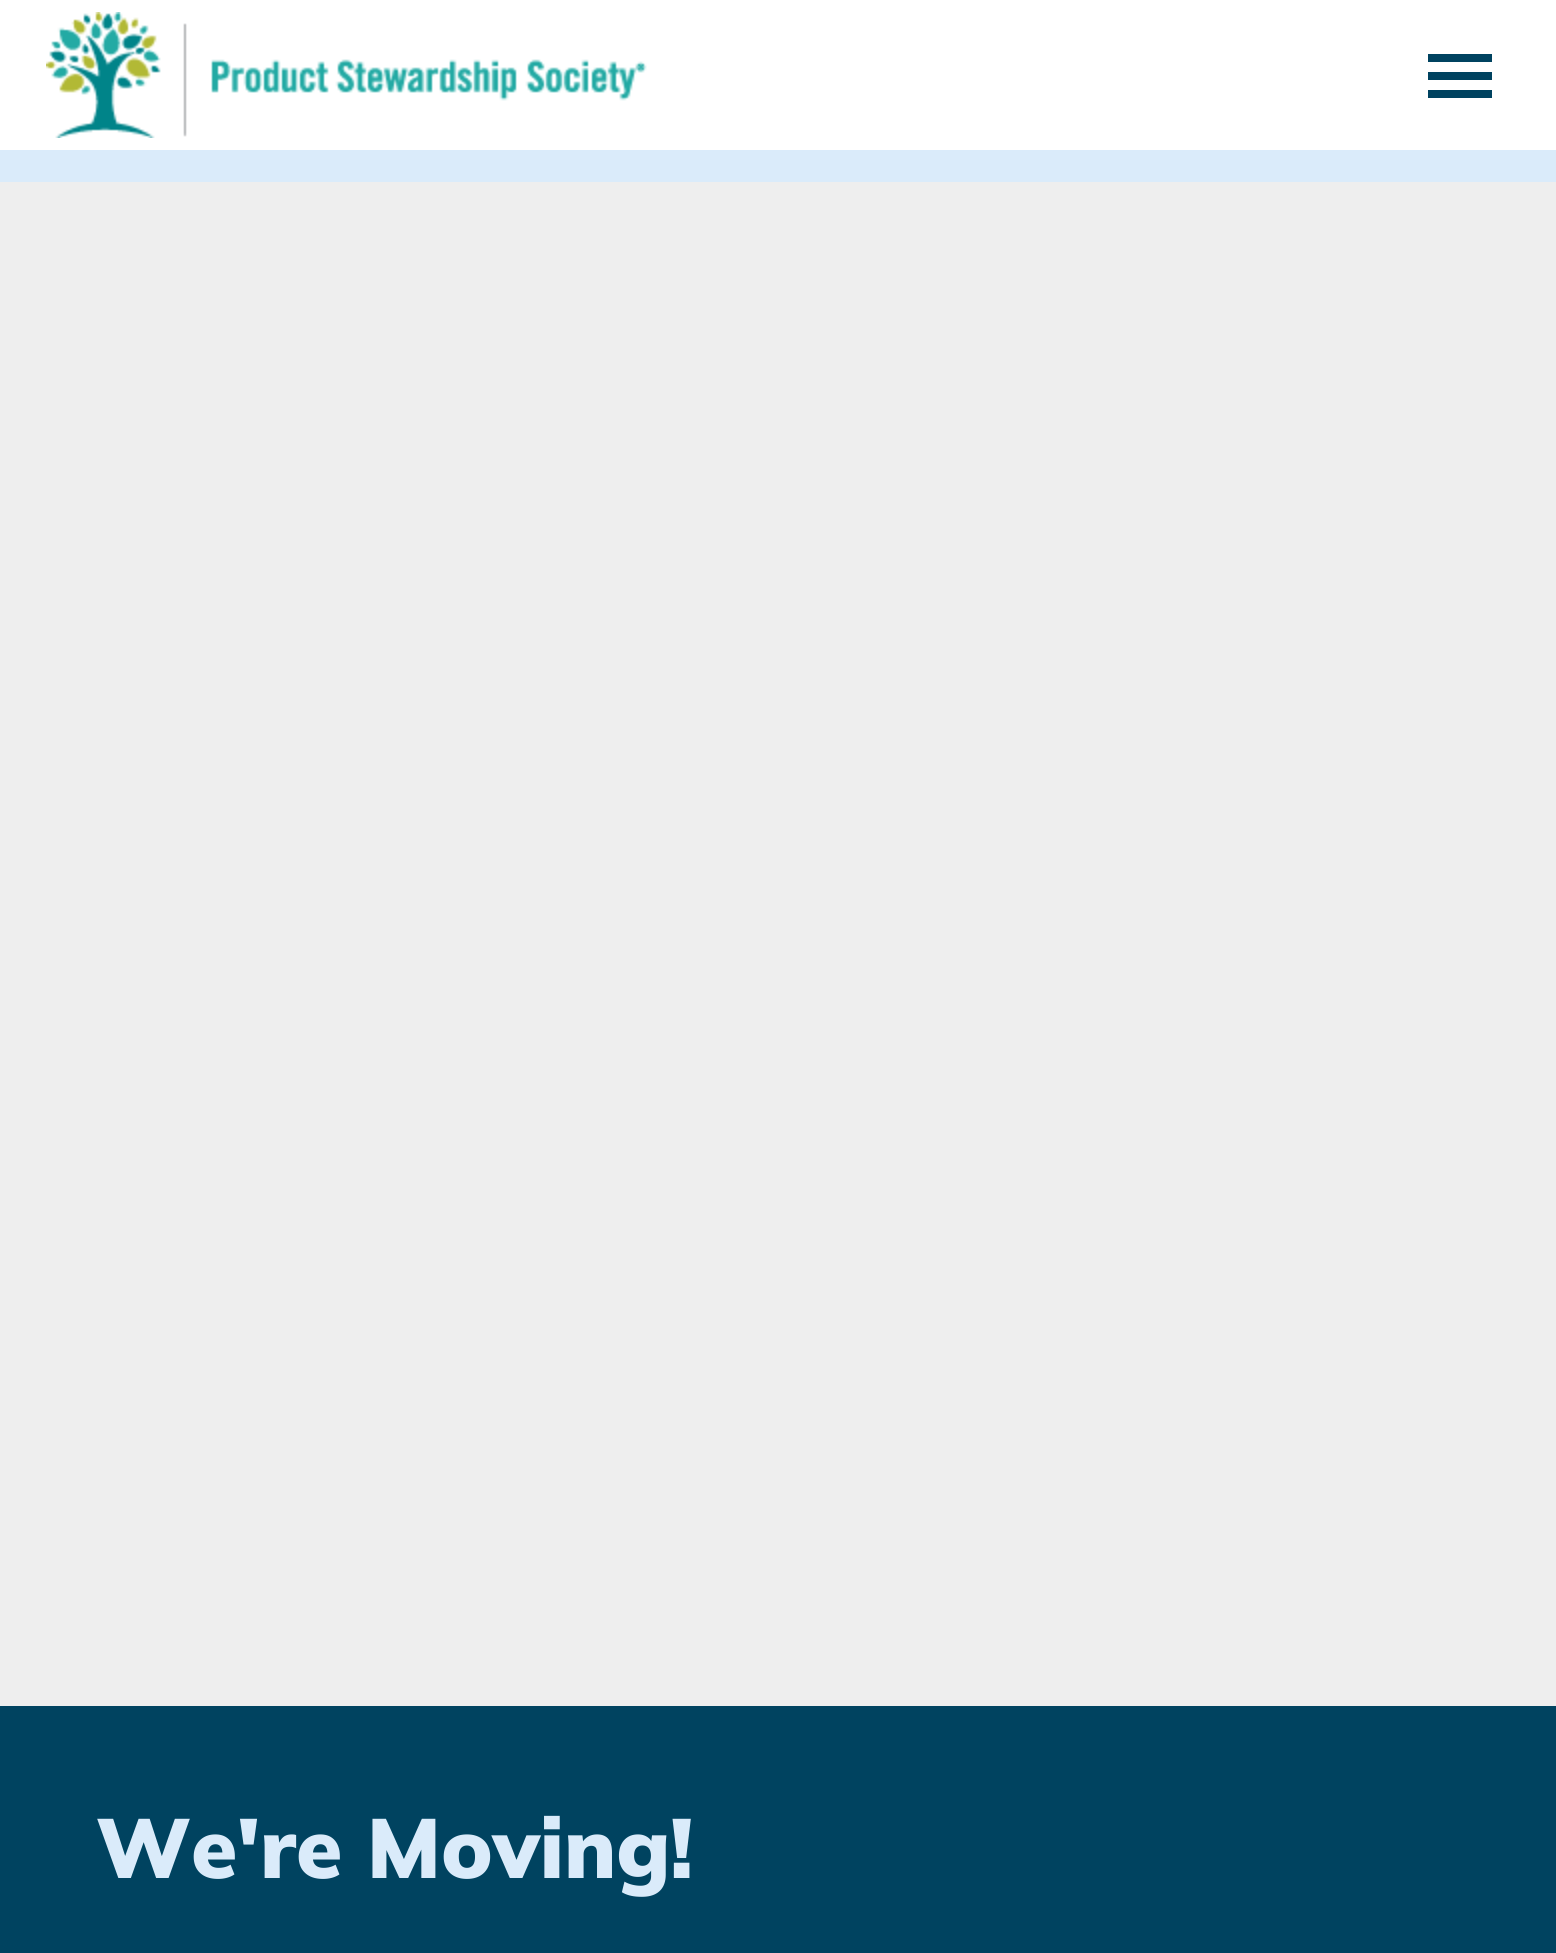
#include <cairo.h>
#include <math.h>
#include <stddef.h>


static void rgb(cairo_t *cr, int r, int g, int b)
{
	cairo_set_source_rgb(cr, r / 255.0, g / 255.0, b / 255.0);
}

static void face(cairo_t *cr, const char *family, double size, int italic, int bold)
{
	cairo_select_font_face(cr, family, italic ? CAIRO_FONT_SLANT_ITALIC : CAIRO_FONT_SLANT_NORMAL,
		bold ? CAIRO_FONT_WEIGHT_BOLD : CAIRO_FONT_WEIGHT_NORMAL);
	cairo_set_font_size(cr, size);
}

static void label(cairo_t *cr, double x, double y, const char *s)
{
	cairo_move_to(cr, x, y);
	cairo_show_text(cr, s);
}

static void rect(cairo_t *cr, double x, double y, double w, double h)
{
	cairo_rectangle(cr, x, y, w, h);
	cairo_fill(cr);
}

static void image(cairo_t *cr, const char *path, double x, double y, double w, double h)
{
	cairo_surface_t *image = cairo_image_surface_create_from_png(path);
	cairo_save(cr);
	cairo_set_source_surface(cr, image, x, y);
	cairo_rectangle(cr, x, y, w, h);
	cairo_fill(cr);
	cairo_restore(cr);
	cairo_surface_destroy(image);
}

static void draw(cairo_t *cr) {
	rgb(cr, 255, 255, 255);
	cairo_paint(cr);
	image(cr, "image0.png", 46, 12, 601, 126);
	rgb(cr, 0, 67, 96);
	rect(cr, 1428, 72, 64, 8);
	rect(cr, 1428, 54, 64, 8);
	rect(cr, 1428, 90, 64, 8);
	rgb(cr, 238, 238, 238);
	rect(cr, 0, 182, 1556, 1524);
	rgb(cr, 218, 235, 250);
	rect(cr, 0, 150, 1556, 32);
	rgb(cr, 0, 67, 96);
	rect(cr, 0, 1706, 1556, 247);
	face(cr, "Mulish Black", 84, 0, 0);
	rgb(cr, 218, 235, 250);
	label(cr, 96, 1878, "We're Moving!");
}

int main(void) {
	cairo_surface_t *surface = cairo_image_surface_create(CAIRO_FORMAT_RGB24, 1556, 1953);
	cairo_t *cr = cairo_create(surface);
	cairo_font_options_t *options = cairo_font_options_create();
	cairo_font_options_set_hint_metrics(options, CAIRO_HINT_METRICS_OFF);
	cairo_font_options_set_hint_style(options, CAIRO_HINT_STYLE_NONE);
	cairo_set_font_options(cr, options);
	cairo_set_miter_limit(cr, 4);
	draw(cr);
	cairo_surface_write_to_png(surface, "render.png");
	cairo_font_options_destroy(options);
	cairo_destroy(cr);
	cairo_surface_destroy(surface);
	return 0;
}
